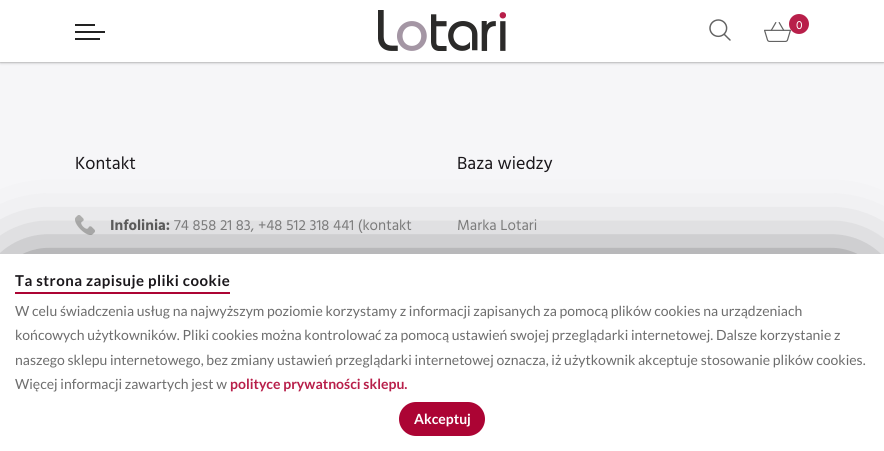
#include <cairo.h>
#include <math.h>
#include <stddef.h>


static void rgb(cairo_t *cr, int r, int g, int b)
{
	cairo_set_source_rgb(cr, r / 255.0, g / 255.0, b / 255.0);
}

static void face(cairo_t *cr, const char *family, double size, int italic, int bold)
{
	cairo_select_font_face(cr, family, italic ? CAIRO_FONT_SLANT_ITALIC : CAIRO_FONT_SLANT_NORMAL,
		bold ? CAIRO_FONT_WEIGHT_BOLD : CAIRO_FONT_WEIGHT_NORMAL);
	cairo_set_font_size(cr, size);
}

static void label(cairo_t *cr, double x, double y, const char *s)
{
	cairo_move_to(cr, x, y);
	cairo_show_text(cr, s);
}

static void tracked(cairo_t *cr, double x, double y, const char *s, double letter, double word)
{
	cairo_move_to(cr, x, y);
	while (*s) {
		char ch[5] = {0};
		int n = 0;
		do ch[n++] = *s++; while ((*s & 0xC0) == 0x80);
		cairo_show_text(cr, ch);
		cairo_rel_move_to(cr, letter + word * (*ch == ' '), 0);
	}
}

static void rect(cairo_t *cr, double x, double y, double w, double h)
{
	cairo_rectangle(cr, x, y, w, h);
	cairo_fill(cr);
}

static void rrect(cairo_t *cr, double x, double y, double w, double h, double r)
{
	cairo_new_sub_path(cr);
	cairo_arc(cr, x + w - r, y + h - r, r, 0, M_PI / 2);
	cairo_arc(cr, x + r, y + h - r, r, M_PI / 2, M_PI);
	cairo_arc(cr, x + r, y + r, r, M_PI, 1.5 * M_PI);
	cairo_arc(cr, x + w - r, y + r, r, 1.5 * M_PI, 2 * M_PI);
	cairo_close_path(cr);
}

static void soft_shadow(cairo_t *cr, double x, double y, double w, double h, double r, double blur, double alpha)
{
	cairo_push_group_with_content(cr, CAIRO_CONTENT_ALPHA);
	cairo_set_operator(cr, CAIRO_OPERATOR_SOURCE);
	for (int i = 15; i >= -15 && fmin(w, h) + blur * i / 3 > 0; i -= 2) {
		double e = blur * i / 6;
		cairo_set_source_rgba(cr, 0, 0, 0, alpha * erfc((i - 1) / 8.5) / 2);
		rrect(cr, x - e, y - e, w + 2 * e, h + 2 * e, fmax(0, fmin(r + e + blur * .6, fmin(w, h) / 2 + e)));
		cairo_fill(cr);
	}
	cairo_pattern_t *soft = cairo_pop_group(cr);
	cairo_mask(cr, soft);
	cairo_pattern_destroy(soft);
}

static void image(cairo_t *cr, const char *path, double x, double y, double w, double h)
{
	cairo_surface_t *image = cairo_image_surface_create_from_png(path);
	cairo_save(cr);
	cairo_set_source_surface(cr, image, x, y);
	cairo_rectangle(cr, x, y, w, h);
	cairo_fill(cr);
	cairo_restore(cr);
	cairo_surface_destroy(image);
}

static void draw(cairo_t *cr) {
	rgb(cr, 246, 246, 248);
	cairo_paint(cr);
	rgb(cr, 0, 0, 0);
	soft_shadow(cr, 0, 0, 884, 62, 0, 1.5, 0.5);
	rgb(cr, 255, 255, 255);
	rect(cr, 0, 0, 884, 62);
	rgb(cr, 34, 34, 34);
	rect(cr, 75, 24, 20, 2);
	rect(cr, 75, 31, 30, 2);
	rect(cr, 75, 38, 25, 2);
	image(cr, "image0.png", 378, 10, 128, 41);
	image(cr, "image1.png", 709, 19, 22, 22);
	image(cr, "image2.png", 764, 22, 27, 20);
	rgb(cr, 184, 31, 74);
	cairo_arc(cr, 799, 24, 10, 0, 2 * M_PI);
	cairo_fill(cr);
	face(cr, "Hind Vadodara", 12, 0, 0);
	rgb(cr, 255, 255, 255);
	label(cr, 796, 29, "0");
	face(cr, "Hind Vadodara", 18, 0, 0);
	rgb(cr, 26, 23, 27);
	label(cr, 75, 169, "Kontakt");
	image(cr, "image3.png", 75, 215, 20, 20);
	face(cr, "Hind Vadodara", 15, 0, 1);
	rgb(cr, 99, 99, 99);
	label(cr, 110, 230, "Infolinia:");
	face(cr, "Hind Vadodara", 15, 0, 0);
	rgb(cr, 135, 135, 135);
	label(cr, 174, 230, "74 858 21 83, +48 512 318 441 (kontakt");
	face(cr, "Hind Vadodara", 18, 0, 0);
	rgb(cr, 26, 23, 27);
	label(cr, 457, 169, "Baza wiedzy");
	face(cr, "Hind Vadodara", 15, 0, 0);
	rgb(cr, 135, 135, 135);
	label(cr, 457, 230, "Marka Lotari");
	rgb(cr, 0, 0, 0);
	soft_shadow(cr, 24, 282, 832, 145, 0, 41, 1);
	rgb(cr, 255, 255, 255);
	rect(cr, 0, 254, 884, 197);
	rgb(cr, 172, 4, 52);
	rect(cr, 15, 292, 215, 2);
	face(cr, "Lato", 15, 0, 1);
	rgb(cr, 26, 23, 27);
	tracked(cr, 15, 286, "Ta strona zapisuje pliki cookie", 0.5, 0);
	face(cr, "Lato", 14, 0, 0);
	rgb(cr, 109, 109, 109);
	label(cr, 15, 316, "W celu świadczenia usług na najwyższym poziomie korzystamy z informacji zapisanych za pomocą plików cookies na urządzeniach");
	label(cr, 15, 340, "końcowych użytkowników. Pliki cookies można kontrolować za pomocą ustawień swojej przeglądarki internetowej. Dalsze korzystanie z");
	label(cr, 15, 365, "naszego sklepu internetowego, bez zmiany ustawień przeglądarki internetowej oznacza, iż użytkownik akceptuje stosowanie plików cookies.");
	label(cr, 15, 389, "Więcej informacji zawartych jest w");
	face(cr, "Lato", 14, 0, 1);
	rgb(cr, 184, 31, 74);
	label(cr, 230, 389, "polityce prywatności sklepu.");
	rgb(cr, 172, 4, 52);
	rrect(cr, 399, 402, 86, 34, 17);
	cairo_fill(cr);
	rgb(cr, 255, 255, 255);
	label(cr, 414, 424, "Akceptuj");
}

int main(void) {
	cairo_surface_t *surface = cairo_image_surface_create(CAIRO_FORMAT_RGB24, 884, 451);
	cairo_t *cr = cairo_create(surface);
	cairo_font_options_t *options = cairo_font_options_create();
	cairo_font_options_set_hint_metrics(options, CAIRO_HINT_METRICS_OFF);
	cairo_font_options_set_hint_style(options, CAIRO_HINT_STYLE_NONE);
	cairo_set_font_options(cr, options);
	cairo_set_miter_limit(cr, 4);
	draw(cr);
	cairo_surface_write_to_png(surface, "render.png");
	cairo_font_options_destroy(options);
	cairo_destroy(cr);
	cairo_surface_destroy(surface);
	return 0;
}
